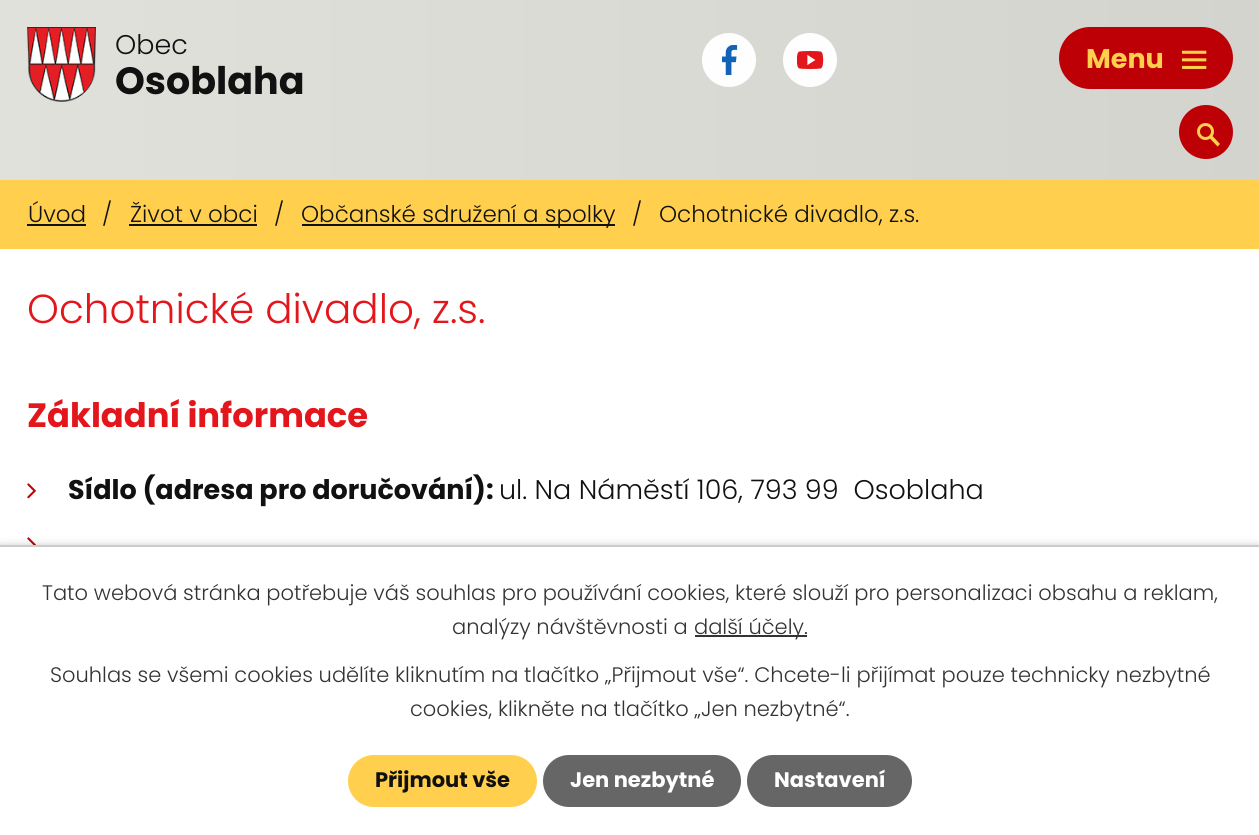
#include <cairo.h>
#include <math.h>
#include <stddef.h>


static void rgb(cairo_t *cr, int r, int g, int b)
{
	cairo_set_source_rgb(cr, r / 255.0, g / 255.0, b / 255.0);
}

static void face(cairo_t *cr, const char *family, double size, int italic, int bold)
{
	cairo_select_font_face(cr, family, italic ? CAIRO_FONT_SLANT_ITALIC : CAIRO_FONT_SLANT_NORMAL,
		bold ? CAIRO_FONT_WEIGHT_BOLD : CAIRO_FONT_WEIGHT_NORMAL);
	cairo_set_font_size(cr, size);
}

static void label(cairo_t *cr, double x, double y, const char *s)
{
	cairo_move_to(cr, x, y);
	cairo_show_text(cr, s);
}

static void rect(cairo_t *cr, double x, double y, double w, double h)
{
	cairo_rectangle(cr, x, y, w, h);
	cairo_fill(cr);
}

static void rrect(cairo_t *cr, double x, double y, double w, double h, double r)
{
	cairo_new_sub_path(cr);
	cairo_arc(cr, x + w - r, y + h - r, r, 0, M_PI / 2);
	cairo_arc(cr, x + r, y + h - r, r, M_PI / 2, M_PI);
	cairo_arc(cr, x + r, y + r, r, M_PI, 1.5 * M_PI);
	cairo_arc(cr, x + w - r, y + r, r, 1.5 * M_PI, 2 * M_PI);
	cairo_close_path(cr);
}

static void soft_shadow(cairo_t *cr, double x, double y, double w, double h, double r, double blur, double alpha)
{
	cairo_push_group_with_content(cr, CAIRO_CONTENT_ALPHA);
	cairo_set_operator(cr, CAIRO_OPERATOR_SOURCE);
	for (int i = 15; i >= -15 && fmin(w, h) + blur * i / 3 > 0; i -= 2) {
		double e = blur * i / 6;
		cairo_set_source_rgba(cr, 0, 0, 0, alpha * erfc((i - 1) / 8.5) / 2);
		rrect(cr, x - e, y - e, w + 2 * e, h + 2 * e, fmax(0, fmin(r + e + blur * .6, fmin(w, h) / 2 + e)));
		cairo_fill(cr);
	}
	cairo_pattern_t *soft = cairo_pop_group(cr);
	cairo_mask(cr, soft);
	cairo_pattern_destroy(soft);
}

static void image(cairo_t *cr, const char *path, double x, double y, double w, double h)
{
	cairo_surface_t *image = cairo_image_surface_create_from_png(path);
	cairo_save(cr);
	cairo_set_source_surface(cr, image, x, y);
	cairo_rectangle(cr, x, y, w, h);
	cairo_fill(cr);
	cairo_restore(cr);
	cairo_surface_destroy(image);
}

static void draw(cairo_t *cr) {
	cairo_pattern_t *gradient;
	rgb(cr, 255, 255, 255);
	cairo_paint(cr);
	gradient = cairo_pattern_create_linear(0, 90, 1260, 90);
	cairo_pattern_add_color_stop_rgba(gradient, 0, 0.882, 0.882, 0.859, 1);
	cairo_pattern_add_color_stop_rgba(gradient, 1, 0.831, 0.831, 0.812, 1);
	cairo_set_source(cr, gradient);
	cairo_pattern_destroy(gradient);
	rect(cr, 0, 0, 1259, 180);
	image(cr, "image0.png", 27, 27, 69, 75);
	face(cr, "Poppins Light", 27, 0, 0);
	rgb(cr, 17, 17, 17);
	label(cr, 115, 54, "Obec");
	face(cr, "Poppins", 38, 0, 1);
	label(cr, 115, 94, "Osoblaha");
	rgb(cr, 254, 254, 254);
	cairo_new_path(cr);
	cairo_arc(cr, 729, 60, 27, 0, 2 * M_PI);
	cairo_fill(cr);
	image(cr, "image1.png", 722, 45, 16, 30);
	cairo_arc(cr, 810, 60, 27, 0, 2 * M_PI);
	cairo_fill(cr);
	image(cr, "image2.png", 797, 51, 27, 18);
	rgb(cr, 189, 0, 6);
	cairo_arc(cr, 1206, 132, 26, 0, 2 * M_PI);
	cairo_fill_preserve(cr);
	cairo_stroke(cr);
	cairo_arc(cr, 1205.5, 131.5, 7, 0, 2 * M_PI);
	rgb(cr, 255, 207, 77);
	cairo_set_line_width(cr, 3);
	cairo_stroke(cr);
	cairo_new_path(cr);
	cairo_move_to(cr, 1211.5, 135);
	cairo_line_to(cr, 1220, 144);
	cairo_line_to(cr, 1217.5, 146.5);
	cairo_line_to(cr, 1209, 137.5);
	cairo_close_path(cr);
	cairo_fill(cr);
	rgb(cr, 189, 0, 6);
	rrect(cr, 1059, 27, 174, 62, 31);
	cairo_fill(cr);
	face(cr, "Poppins", 27, 0, 1);
	rgb(cr, 255, 207, 77);
	label(cr, 1086, 68, "Menu");
	image(cr, "image3.png", 1182, 50, 25, 19);
	rect(cr, 0, 180, 1259, 69);
	face(cr, "Poppins Light", 23, 0, 0);
	rgb(cr, 17, 17, 17);
	label(cr, 28, 222, "Úvod");
	rect(cr, 27, 224, 59, 2);
	label(cr, 102, 222, "/");
	label(cr, 130, 222, "Život v obci");
	rect(cr, 129, 224, 128, 2);
	label(cr, 274, 222, "/");
	rect(cr, 302, 224, 313, 2);
	label(cr, 301, 222, "Občanské sdružení a spolky");
	label(cr, 632, 222, "/");
	label(cr, 659, 222, "Ochotnické divadlo, z.s.");
	face(cr, "Poppins Light", 40.5, 0, 0);
	rgb(cr, 227, 22, 28);
	label(cr, 27, 323, "Ochotnické divadlo, z.s.");
	face(cr, "Poppins", 33.75, 0, 1);
	label(cr, 27, 427, "Základní informace");
	image(cr, "image4.png", 27, 483, 9, 16);
	face(cr, "Poppins", 27, 0, 1);
	rgb(cr, 17, 17, 17);
	label(cr, 68, 499, "Sídlo (adresa pro doručování):");
	face(cr, "Poppins Light", 27, 0, 0);
	label(cr, 499, 499, "ul. Na Náměstí 106, 793 99  Osoblaha");
	image(cr, "image5.png", 27, 537, 9, 8);
	rgb(cr, 0, 0, 0);
	soft_shadow(cr, 0, 545, 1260, 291, 0, 4, 0.2);
	rgb(cr, 255, 255, 255);
	rect(cr, 0, 547, 1259, 288);
	rgb(cr, 204, 204, 204);
	rect(cr, 0, 545, 1259, 2);
	face(cr, "Poppins Light", 21, 0, 0);
	rgb(cr, 51, 51, 51);
	label(cr, 42, 600, "Tato webová stránka potřebuje váš souhlas pro používání cookies, které slouží pro personalizaci obsahu a reklam,");
	label(cr, 452, 634, "analýzy návštěvnosti a");
	rect(cr, 695, 635, 112, 2);
	label(cr, 694, 634, "další účely.");
	label(cr, 50, 682, "Souhlas se všemi cookies udělíte kliknutím na tlačítko „Přijmout vše“. Chcete-li přijímat pouze technicky nezbytné");
	label(cr, 410, 716, "cookies, klikněte na tlačítko „Jen nezbytné“.");
	rgb(cr, 255, 207, 77);
	rrect(cr, 348, 755, 189, 52, 26);
	cairo_fill(cr);
	face(cr, "Poppins", 21, 0, 1);
	rgb(cr, 17, 17, 17);
	label(cr, 375, 787, "Přijmout vše");
	rgb(cr, 102, 102, 102);
	rrect(cr, 543, 755, 198, 52, 26);
	cairo_fill(cr);
	rgb(cr, 255, 255, 255);
	label(cr, 570, 787, "Jen nezbytné");
	rgb(cr, 102, 102, 102);
	rrect(cr, 747, 755, 165, 52, 26);
	cairo_fill(cr);
	rgb(cr, 255, 255, 255);
	label(cr, 774, 787, "Nastavení");
}

int main(void) {
	cairo_surface_t *surface = cairo_image_surface_create(CAIRO_FORMAT_RGB24, 1259, 835);
	cairo_t *cr = cairo_create(surface);
	cairo_font_options_t *options = cairo_font_options_create();
	cairo_font_options_set_hint_metrics(options, CAIRO_HINT_METRICS_OFF);
	cairo_font_options_set_hint_style(options, CAIRO_HINT_STYLE_NONE);
	cairo_set_font_options(cr, options);
	cairo_set_miter_limit(cr, 4);
	draw(cr);
	cairo_surface_write_to_png(surface, "render.png");
	cairo_font_options_destroy(options);
	cairo_destroy(cr);
	cairo_surface_destroy(surface);
	return 0;
}
